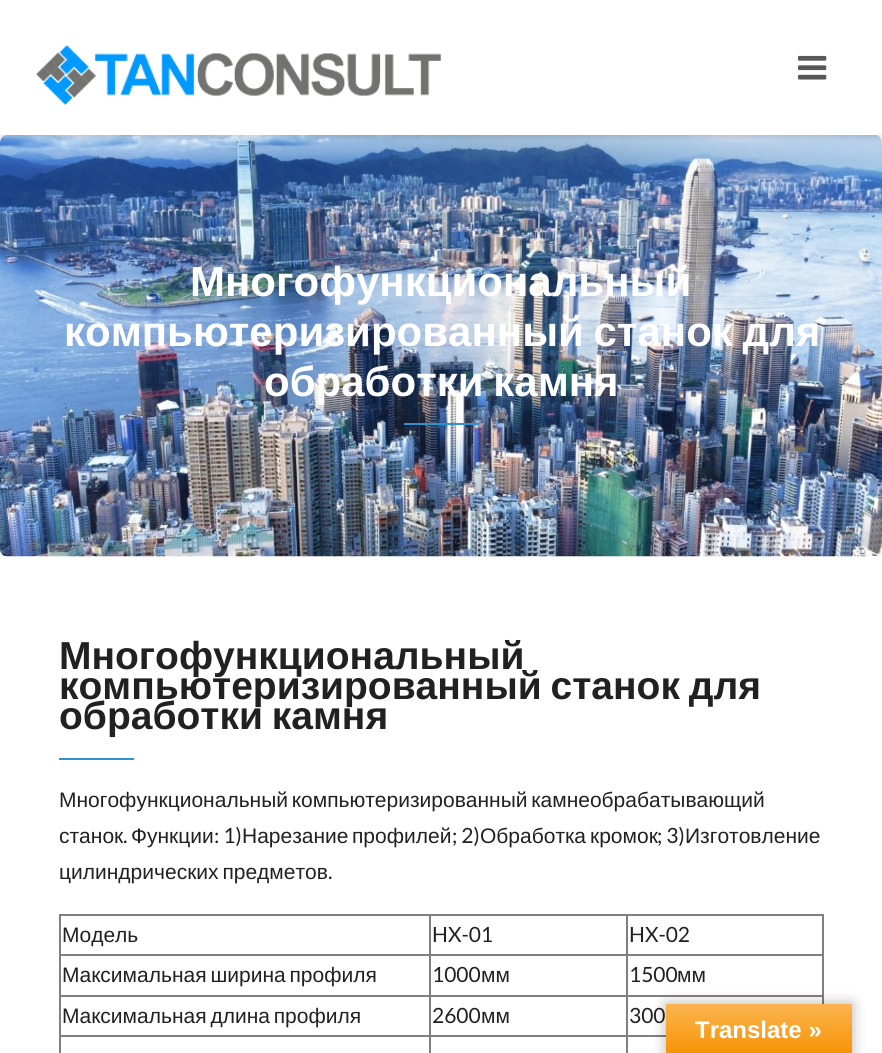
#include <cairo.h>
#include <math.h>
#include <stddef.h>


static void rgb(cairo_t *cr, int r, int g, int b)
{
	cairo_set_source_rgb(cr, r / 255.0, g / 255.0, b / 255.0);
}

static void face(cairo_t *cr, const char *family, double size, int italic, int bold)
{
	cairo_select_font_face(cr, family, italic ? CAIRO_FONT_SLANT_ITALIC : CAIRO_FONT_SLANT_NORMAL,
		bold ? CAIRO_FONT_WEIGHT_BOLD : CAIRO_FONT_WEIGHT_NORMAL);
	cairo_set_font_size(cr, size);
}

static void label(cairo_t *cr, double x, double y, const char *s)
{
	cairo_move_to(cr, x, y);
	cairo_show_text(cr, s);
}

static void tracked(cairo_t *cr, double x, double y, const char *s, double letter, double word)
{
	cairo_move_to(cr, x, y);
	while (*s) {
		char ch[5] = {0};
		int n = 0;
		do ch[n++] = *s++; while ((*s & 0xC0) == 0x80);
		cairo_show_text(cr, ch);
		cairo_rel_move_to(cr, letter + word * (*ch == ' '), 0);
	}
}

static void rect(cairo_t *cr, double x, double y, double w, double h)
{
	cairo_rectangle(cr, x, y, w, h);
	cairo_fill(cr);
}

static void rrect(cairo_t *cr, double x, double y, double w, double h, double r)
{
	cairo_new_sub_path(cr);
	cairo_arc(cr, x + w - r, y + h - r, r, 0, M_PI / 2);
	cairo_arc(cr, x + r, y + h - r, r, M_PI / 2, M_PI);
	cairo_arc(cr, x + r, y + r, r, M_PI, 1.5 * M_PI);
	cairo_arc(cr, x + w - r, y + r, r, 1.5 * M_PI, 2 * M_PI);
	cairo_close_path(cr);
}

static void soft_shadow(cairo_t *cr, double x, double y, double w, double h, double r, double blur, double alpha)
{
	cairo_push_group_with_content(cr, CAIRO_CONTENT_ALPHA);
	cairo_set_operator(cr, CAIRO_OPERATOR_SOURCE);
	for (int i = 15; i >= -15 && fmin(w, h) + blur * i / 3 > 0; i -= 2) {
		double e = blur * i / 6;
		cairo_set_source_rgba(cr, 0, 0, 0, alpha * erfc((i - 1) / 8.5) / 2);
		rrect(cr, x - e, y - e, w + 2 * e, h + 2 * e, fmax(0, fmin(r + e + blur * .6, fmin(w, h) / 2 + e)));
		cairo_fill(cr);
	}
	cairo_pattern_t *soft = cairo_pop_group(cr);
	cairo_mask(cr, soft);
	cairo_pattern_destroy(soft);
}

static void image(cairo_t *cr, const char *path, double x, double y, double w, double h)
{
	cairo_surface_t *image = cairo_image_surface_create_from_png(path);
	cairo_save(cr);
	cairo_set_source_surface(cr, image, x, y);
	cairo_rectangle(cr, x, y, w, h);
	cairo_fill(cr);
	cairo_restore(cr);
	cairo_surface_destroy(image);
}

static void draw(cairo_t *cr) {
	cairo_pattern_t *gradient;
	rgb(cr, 255, 255, 255);
	cairo_paint(cr);
	image(cr, "image2.png", 0, 135, 882, 422);
	cairo_save(cr);
	cairo_rectangle(cr, 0, 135, 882, 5);
	cairo_clip(cr);
	rgb(cr, 0, 0, 0);
	soft_shadow(cr, 0, 0, 882, 135, 0, 4, 0.2);
	cairo_restore(cr);
	image(cr, "image0.png", 36, 45, 405, 60);
	image(cr, "image1.png", 798, 55, 29, 25);
	face(cr, "Liberation Sans", 42, 0, 1);
	rgb(cr, 255, 255, 255);
	label(cr, 190, 296, "Многофункциональный");
	tracked(cr, 64, 346, "компьютеризированный станок для", 0, -2);
	tracked(cr, 264, 396, "обработки камня", 0, -2);
	rgb(cr, 46, 147, 205);
	rect(cr, 404, 423, 75, 2);
	face(cr, "Liberation Sans", 39, 0, 1);
	rgb(cr, 33, 33, 33);
	label(cr, 59, 669, "Многофункциональный");
	tracked(cr, 59, 699, "компьютеризированный станок для", 0, -2);
	tracked(cr, 59, 729, "обработки камня", 0, -2);
	rgb(cr, 46, 147, 205);
	rect(cr, 59, 758, 75, 2);
	face(cr, "Liberation Sans", 21, 0, 0);
	rgb(cr, 33, 33, 33);
	tracked(cr, 59, 807, "Многофункциональный компьютеризированный камнеобрабатывающий", 0, -2);
	label(cr, 59, 843, "станок");
	face(cr, "Lato", 21, 0, 0);
	label(cr, 123, 843, ".");
	face(cr, "Liberation Sans", 21, 0, 0);
	label(cr, 131, 843, "Функции");
	face(cr, "Lato", 21, 0, 0);
	label(cr, 214, 843, ": 1)");
	face(cr, "Liberation Sans", 21, 0, 0);
	label(cr, 242, 843, "Нарезание");
	label(cr, 352, 843, "профилей");
	face(cr, "Lato", 21, 0, 0);
	label(cr, 452, 843, "; 2)");
	face(cr, "Liberation Sans", 21, 0, 0);
	label(cr, 480, 843, "Обработка");
	label(cr, 590, 843, "кромок");
	face(cr, "Lato", 21, 0, 0);
	label(cr, 657, 843, "; 3)");
	face(cr, "Liberation Sans", 21, 0, 0);
	label(cr, 685, 843, "Изготовление");
	tracked(cr, 59, 879, "цилиндрических предметов", 0, -2);
	face(cr, "Lato", 21, 0, 0);
	label(cr, 328, 879, ".");
	rgb(cr, 128, 128, 128);
	rect(cr, 59, 914, 765, 2);
	rect(cr, 822, 914, 2, 90);
	rect(cr, 59, 914, 2, 139);
	face(cr, "Liberation Sans", 21, 0, 0);
	rgb(cr, 33, 33, 33);
	label(cr, 62, 942, "Модель");
	rgb(cr, 128, 128, 128);
	rect(cr, 626, 954, 198, 2);
	rect(cr, 626, 995, 198, 2);
	rect(cr, 626, 1035, 40, 2);
	rect(cr, 626, 1035, 2, 18);
	rect(cr, 429, 1035, 198, 2);
	rect(cr, 626, 995, 2, 42);
	rect(cr, 429, 995, 198, 2);
	rect(cr, 626, 954, 2, 42);
	rect(cr, 429, 954, 198, 2);
	rect(cr, 429, 1035, 2, 18);
	rect(cr, 59, 1035, 372, 2);
	rect(cr, 429, 995, 2, 42);
	rect(cr, 59, 995, 372, 2);
	rect(cr, 429, 954, 2, 42);
	rect(cr, 59, 954, 372, 2);
	rect(cr, 429, 914, 2, 42);
	face(cr, "Lato", 21, 0, 0);
	rgb(cr, 33, 33, 33);
	label(cr, 432, 942, "HX-01");
	rgb(cr, 128, 128, 128);
	rect(cr, 626, 914, 2, 42);
	rgb(cr, 33, 33, 33);
	label(cr, 629, 942, "HX-02");
	face(cr, "Liberation Sans", 21, 0, 0);
	tracked(cr, 62, 982, "Максимальная ширина профиля", 0, -2);
	face(cr, "Lato", 21, 0, 0);
	label(cr, 432, 982, "1000");
	face(cr, "Liberation Sans", 21, 0, 0);
	label(cr, 481, 982, "мм");
	face(cr, "Lato", 21, 0, 0);
	label(cr, 629, 982, "1500");
	face(cr, "Liberation Sans", 21, 0, 0);
	label(cr, 677, 982, "мм");
	tracked(cr, 62, 1023, "Максимальная длина профиля", 0, -2);
	face(cr, "Lato", 21, 0, 0);
	label(cr, 432, 1023, "2600");
	face(cr, "Liberation Sans", 21, 0, 0);
	label(cr, 481, 1023, "мм");
	face(cr, "Lato", 21, 0, 0);
	label(cr, 629, 1023, "300");
	rgb(cr, 0, 0, 0);
	soft_shadow(cr, 666, 1004, 186, 49, 0, 7, 0.3);
	gradient = cairo_pattern_create_linear(759, 1004, 759, 1053);
	cairo_pattern_add_color_stop_rgba(gradient, 0, 0.984, 0.706, 0.314, 1);
	cairo_pattern_add_color_stop_rgba(gradient, 1, 0.973, 0.58, 0.024, 1);
	cairo_set_source(cr, gradient);
	cairo_pattern_destroy(gradient);
	rect(cr, 666, 1004, 186, 49);
	face(cr, "Liberation Sans", 24, 0, 1);
	rgb(cr, 255, 255, 255);
	label(cr, 695, 1038, "Translate »");
}

int main(void) {
	cairo_surface_t *surface = cairo_image_surface_create(CAIRO_FORMAT_RGB24, 882, 1053);
	cairo_t *cr = cairo_create(surface);
	cairo_font_options_t *options = cairo_font_options_create();
	cairo_font_options_set_hint_metrics(options, CAIRO_HINT_METRICS_OFF);
	cairo_font_options_set_hint_style(options, CAIRO_HINT_STYLE_NONE);
	cairo_set_font_options(cr, options);
	cairo_set_miter_limit(cr, 4);
	draw(cr);
	cairo_surface_write_to_png(surface, "render.png");
	cairo_font_options_destroy(options);
	cairo_destroy(cr);
	cairo_surface_destroy(surface);
	return 0;
}
